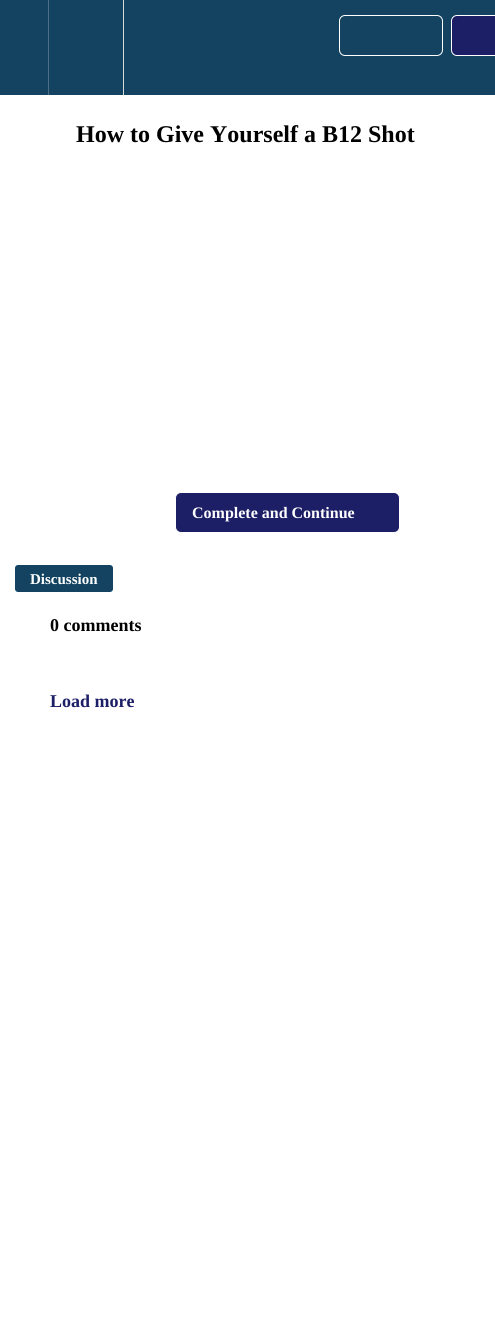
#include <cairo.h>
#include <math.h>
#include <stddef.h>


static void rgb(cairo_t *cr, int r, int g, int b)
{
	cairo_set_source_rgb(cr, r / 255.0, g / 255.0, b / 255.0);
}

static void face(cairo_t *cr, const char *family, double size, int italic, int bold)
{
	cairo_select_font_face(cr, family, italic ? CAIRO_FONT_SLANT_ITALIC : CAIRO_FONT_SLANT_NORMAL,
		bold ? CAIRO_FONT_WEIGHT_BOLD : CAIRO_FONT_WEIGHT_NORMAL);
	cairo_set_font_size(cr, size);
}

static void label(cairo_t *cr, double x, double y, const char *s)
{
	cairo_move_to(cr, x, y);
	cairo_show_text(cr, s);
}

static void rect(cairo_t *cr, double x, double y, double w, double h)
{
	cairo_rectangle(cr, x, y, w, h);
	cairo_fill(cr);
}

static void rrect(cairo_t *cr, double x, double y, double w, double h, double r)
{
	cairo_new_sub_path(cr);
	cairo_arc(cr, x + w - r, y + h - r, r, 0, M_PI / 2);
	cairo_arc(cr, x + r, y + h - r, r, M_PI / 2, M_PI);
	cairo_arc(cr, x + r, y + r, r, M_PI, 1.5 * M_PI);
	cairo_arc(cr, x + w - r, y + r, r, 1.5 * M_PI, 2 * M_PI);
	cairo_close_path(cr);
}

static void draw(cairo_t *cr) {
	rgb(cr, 255, 255, 255);
	cairo_paint(cr);
	rgb(cr, 19, 67, 97);
	rect(cr, 0, 0, 495, 95);
	rgb(cr, 215, 218, 219);
	rect(cr, 123, 0, 1, 95);
	rgb(cr, 78, 112, 134);
	rect(cr, 48, 0, 1, 95);
	rrect(cr, 339.5, 15.5, 103, 40, 5.5);
	rgb(cr, 255, 255, 255);
	cairo_set_line_width(cr, 1);
	cairo_stroke(cr);
	rgb(cr, 28, 31, 101);
	rrect(cr, 451.5, 15.5, 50, 40, 5.5);
	cairo_fill_preserve(cr);
	rgb(cr, 255, 255, 255);
	cairo_stroke(cr);
	face(cr, "Liberation Serif", 24, 0, 1);
	rgb(cr, 0, 0, 0);
	label(cr, 76, 142, "How to Give Yourself a B12 Shot");
	rgb(cr, 28, 31, 101);
	rrect(cr, 175.5, 492.5, 224, 40, 5.5);
	cairo_fill_preserve(cr);
	rgb(cr, 255, 255, 255);
	cairo_stroke(cr);
	face(cr, "Liberation Serif", 16, 0, 1);
	label(cr, 192, 518, "Complete and Continue");
	rgb(cr, 19, 67, 97);
	rrect(cr, 15, 565, 98, 27, 3);
	cairo_fill(cr);
	face(cr, "Liberation Serif", 15, 0, 1);
	rgb(cr, 255, 255, 255);
	label(cr, 30, 584, "Discussion");
	face(cr, "Liberation Serif", 18, 0, 1);
	rgb(cr, 0, 0, 0);
	label(cr, 50, 631, "0 comments");
	rgb(cr, 28, 31, 101);
	label(cr, 50, 707, "Load more");
}

int main(void) {
	cairo_surface_t *surface = cairo_image_surface_create(CAIRO_FORMAT_RGB24, 495, 1320);
	cairo_t *cr = cairo_create(surface);
	cairo_font_options_t *options = cairo_font_options_create();
	cairo_font_options_set_hint_metrics(options, CAIRO_HINT_METRICS_OFF);
	cairo_font_options_set_hint_style(options, CAIRO_HINT_STYLE_NONE);
	cairo_set_font_options(cr, options);
	cairo_set_miter_limit(cr, 4);
	draw(cr);
	cairo_surface_write_to_png(surface, "render.png");
	cairo_font_options_destroy(options);
	cairo_destroy(cr);
	cairo_surface_destroy(surface);
	return 0;
}
